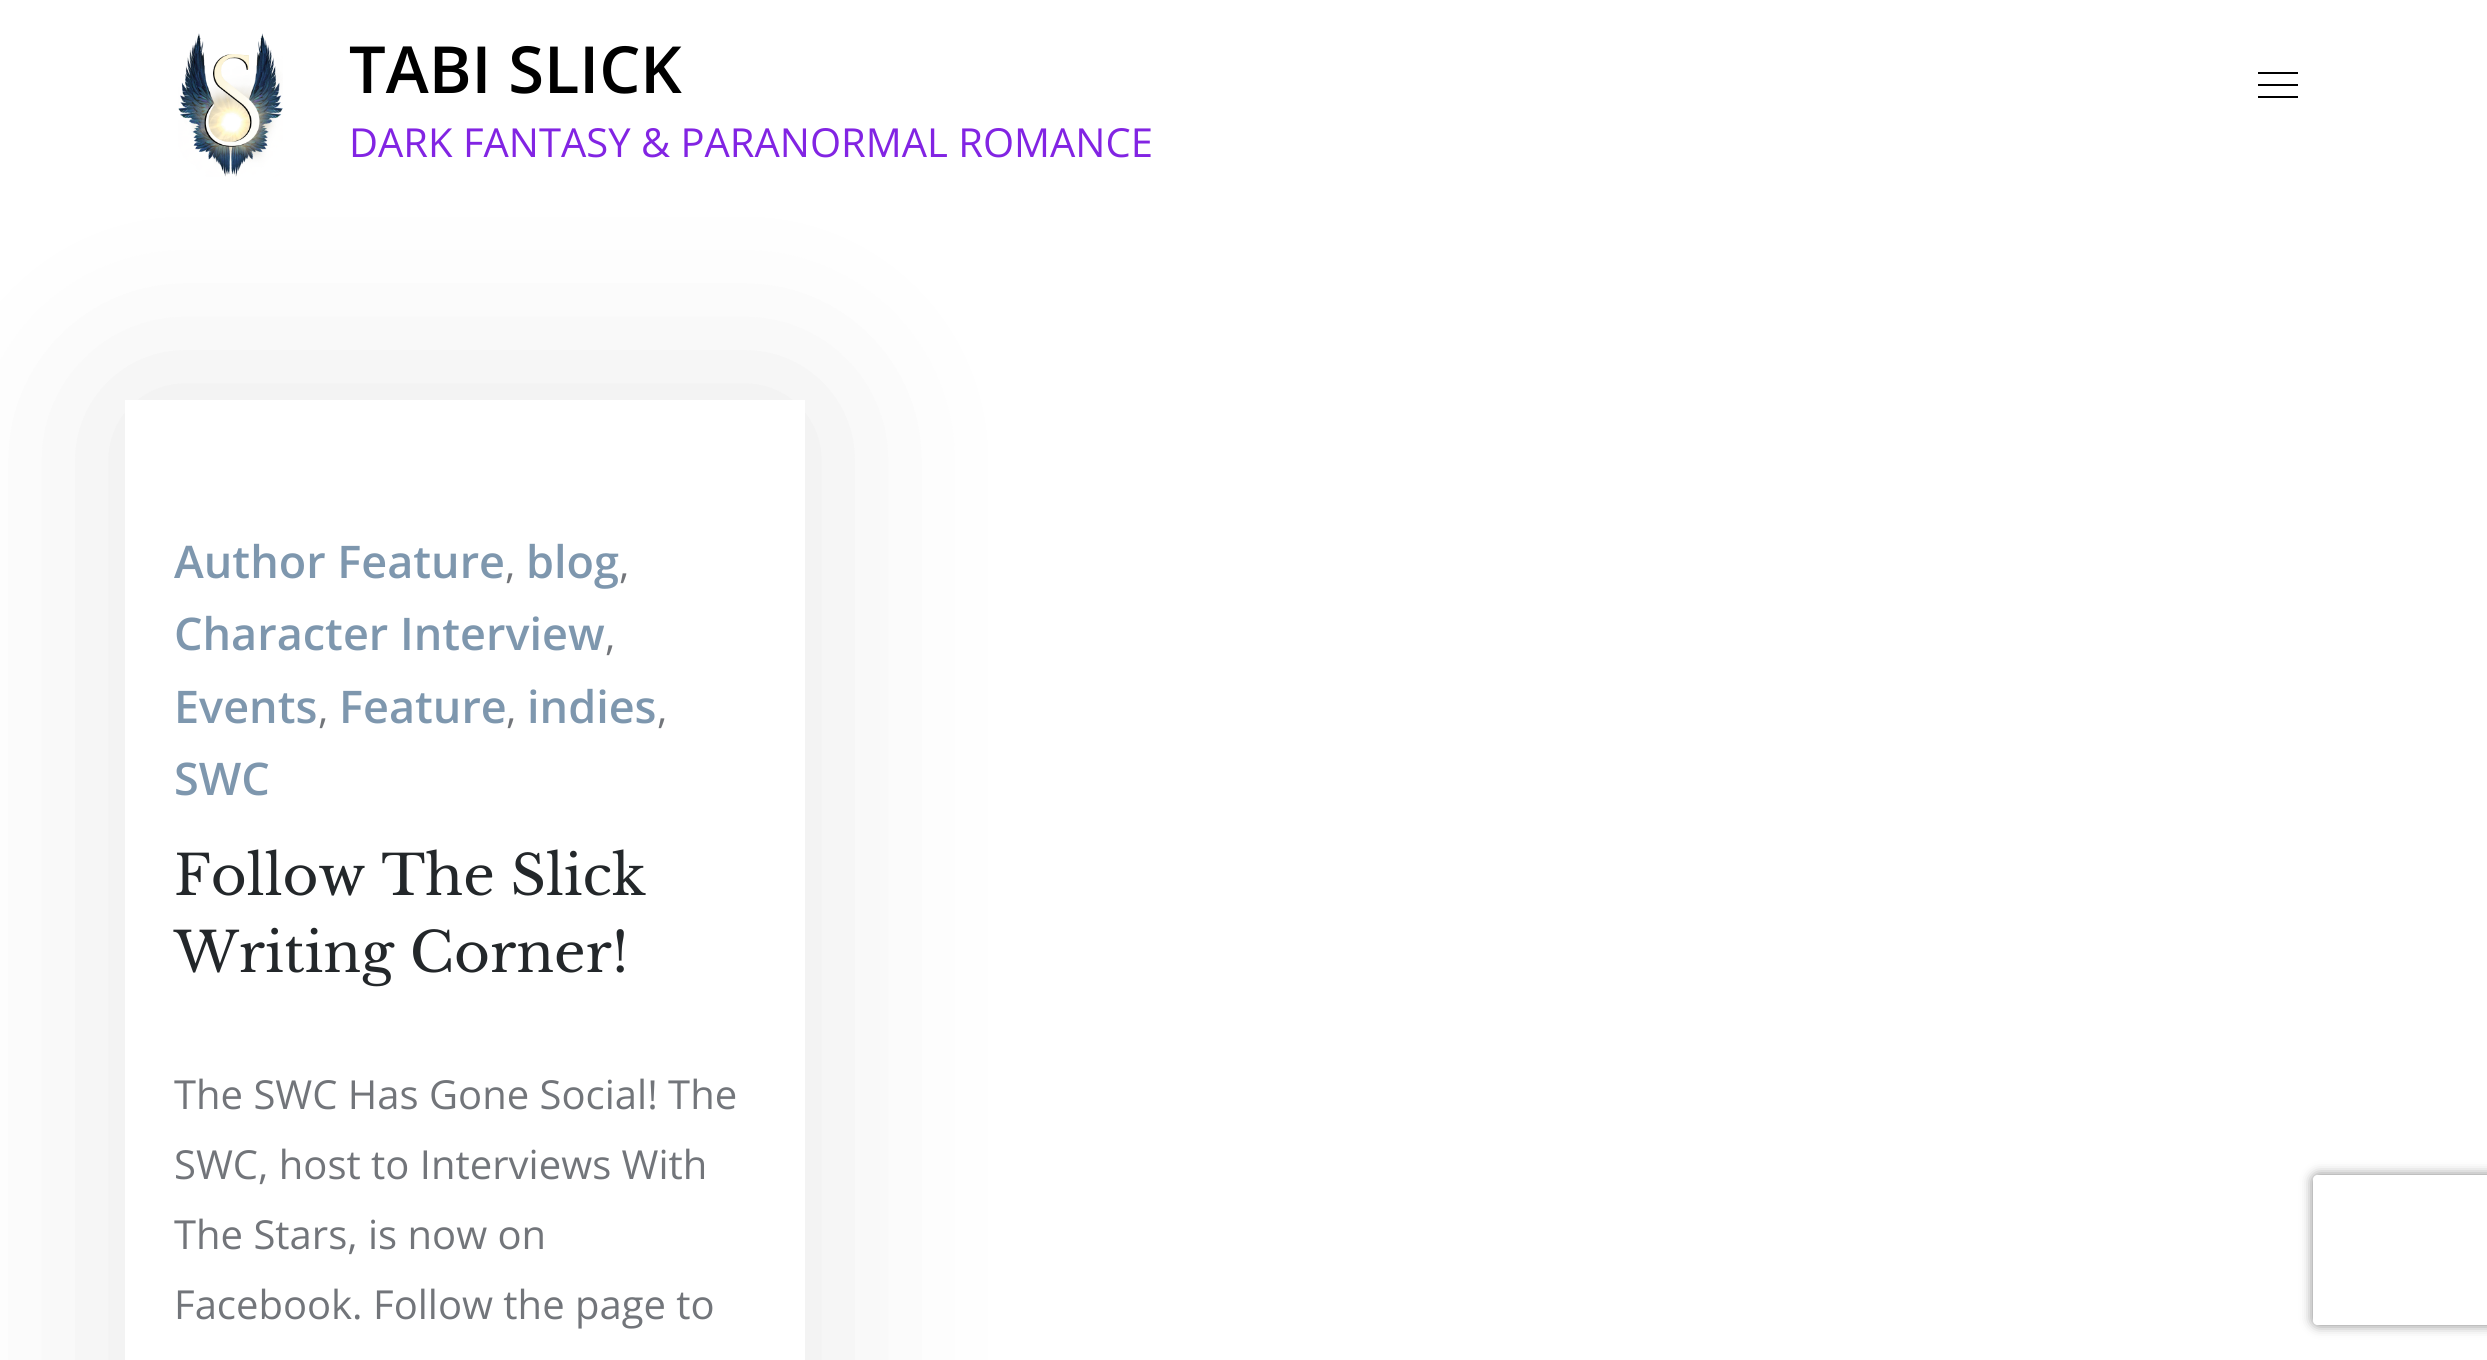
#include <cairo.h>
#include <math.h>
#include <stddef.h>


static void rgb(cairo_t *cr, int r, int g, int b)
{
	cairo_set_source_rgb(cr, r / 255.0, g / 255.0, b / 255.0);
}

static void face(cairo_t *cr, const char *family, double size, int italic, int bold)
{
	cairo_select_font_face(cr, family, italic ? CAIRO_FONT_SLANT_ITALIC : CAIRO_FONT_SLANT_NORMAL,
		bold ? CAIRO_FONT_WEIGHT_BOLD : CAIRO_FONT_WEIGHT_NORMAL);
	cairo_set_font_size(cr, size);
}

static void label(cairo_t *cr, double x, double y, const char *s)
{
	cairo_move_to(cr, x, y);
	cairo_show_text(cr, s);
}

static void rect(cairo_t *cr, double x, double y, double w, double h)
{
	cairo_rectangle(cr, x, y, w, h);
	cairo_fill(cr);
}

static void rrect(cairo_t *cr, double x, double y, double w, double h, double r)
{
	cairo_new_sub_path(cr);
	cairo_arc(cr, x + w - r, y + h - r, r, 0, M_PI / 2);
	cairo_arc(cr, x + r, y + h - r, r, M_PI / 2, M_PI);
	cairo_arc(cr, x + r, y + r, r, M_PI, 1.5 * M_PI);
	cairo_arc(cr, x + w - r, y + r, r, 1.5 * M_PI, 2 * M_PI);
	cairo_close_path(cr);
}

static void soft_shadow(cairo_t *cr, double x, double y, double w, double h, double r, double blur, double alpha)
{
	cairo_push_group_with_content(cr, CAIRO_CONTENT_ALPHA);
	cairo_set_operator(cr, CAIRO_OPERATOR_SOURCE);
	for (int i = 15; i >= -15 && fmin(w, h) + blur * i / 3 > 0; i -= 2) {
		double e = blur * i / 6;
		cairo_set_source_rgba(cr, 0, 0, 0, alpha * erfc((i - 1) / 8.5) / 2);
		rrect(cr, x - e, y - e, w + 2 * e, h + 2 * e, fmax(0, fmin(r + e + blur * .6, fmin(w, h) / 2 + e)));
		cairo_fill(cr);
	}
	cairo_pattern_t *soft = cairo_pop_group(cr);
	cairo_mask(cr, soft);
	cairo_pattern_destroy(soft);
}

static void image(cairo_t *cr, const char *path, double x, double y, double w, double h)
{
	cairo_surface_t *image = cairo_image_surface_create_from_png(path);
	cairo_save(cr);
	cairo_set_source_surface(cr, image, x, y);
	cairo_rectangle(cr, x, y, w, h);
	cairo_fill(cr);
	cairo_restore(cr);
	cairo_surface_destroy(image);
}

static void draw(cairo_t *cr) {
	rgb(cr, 255, 255, 255);
	cairo_paint(cr);
	cairo_save(cr);
	cairo_set_fill_rule(cr, CAIRO_FILL_RULE_EVEN_ODD);
	cairo_new_path(cr);
	cairo_move_to(cr, 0, 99);
	cairo_line_to(cr, 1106, 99);
	cairo_line_to(cr, 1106, 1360);
	cairo_line_to(cr, 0, 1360);
	cairo_close_path(cr);
	cairo_move_to(cr, 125, 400);
	cairo_line_to(cr, 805, 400);
	cairo_line_to(cr, 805, 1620);
	cairo_line_to(cr, 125, 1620);
	cairo_close_path(cr);
	cairo_clip(cr);
	rgb(cr, 0, 0, 0);
	soft_shadow(cr, 125, 400, 680, 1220, 0, 100, 0.1);
	cairo_restore(cr);
	image(cr, "image0.png", 178, 33, 105, 144);
	face(cr, "Open Sans SemiBold", 65, 0, 0);
	rgb(cr, 0, 0, 0);
	label(cr, 349, 93, "TABI SLICK");
	face(cr, "Open Sans", 40, 0, 0);
	rgb(cr, 130, 36, 227);
	label(cr, 349, 157, "DARK FANTASY & PARANORMAL ROMANCE");
	rgb(cr, 0, 0, 0);
	rect(cr, 2258, 72, 40, 2);
	rect(cr, 2258, 84, 40, 2);
	rect(cr, 2258, 96, 40, 2);
	face(cr, "Open Sans SemiBold", 45, 0, 0);
	rgb(cr, 126, 151, 174);
	label(cr, 174, 578, "Author Feature");
	face(cr, "Open Sans", 40, 0, 0);
	rgb(cr, 114, 117, 122);
	label(cr, 505, 578, ",");
	face(cr, "Open Sans SemiBold", 45, 0, 0);
	rgb(cr, 126, 151, 174);
	label(cr, 526, 578, "blog");
	face(cr, "Open Sans", 40, 0, 0);
	rgb(cr, 114, 117, 122);
	label(cr, 619, 578, ",");
	face(cr, "Open Sans SemiBold", 45, 0, 0);
	rgb(cr, 126, 151, 174);
	label(cr, 174, 650, "Character Interview");
	face(cr, "Open Sans", 40, 0, 0);
	rgb(cr, 114, 117, 122);
	label(cr, 605, 650, ",");
	face(cr, "Open Sans SemiBold", 45, 0, 0);
	rgb(cr, 126, 151, 174);
	label(cr, 174, 723, "Events");
	face(cr, "Open Sans", 40, 0, 0);
	rgb(cr, 114, 117, 122);
	label(cr, 318, 723, ",");
	face(cr, "Open Sans SemiBold", 45, 0, 0);
	rgb(cr, 126, 151, 174);
	label(cr, 339, 723, "Feature");
	face(cr, "Open Sans", 40, 0, 0);
	rgb(cr, 114, 117, 122);
	label(cr, 506, 723, ",");
	face(cr, "Open Sans SemiBold", 45, 0, 0);
	rgb(cr, 126, 151, 174);
	label(cr, 527, 723, "indies");
	face(cr, "Open Sans", 40, 0, 0);
	rgb(cr, 114, 117, 122);
	label(cr, 657, 723, ",");
	face(cr, "Open Sans SemiBold", 45, 0, 0);
	rgb(cr, 126, 151, 174);
	label(cr, 174, 795, "SWC");
	face(cr, "Libre Baskerville", 55, 0, 0);
	rgb(cr, 35, 39, 42);
	label(cr, 174, 895, "Follow The Slick");
	label(cr, 174, 972, "Writing Corner!");
	face(cr, "Open Sans", 40, 0, 0);
	rgb(cr, 114, 117, 122);
	label(cr, 174, 1109, "The SWC Has Gone Social! The");
	label(cr, 174, 1179, "SWC, host to Interviews With");
	label(cr, 174, 1249, "The Stars, is now on");
	label(cr, 174, 1319, "Facebook. Follow the page to");
	cairo_save(cr);
	cairo_set_fill_rule(cr, CAIRO_FILL_RULE_EVEN_ODD);
	cairo_new_path(cr);
	cairo_move_to(cr, 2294, 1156);
	cairo_line_to(cr, 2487, 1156);
	cairo_line_to(cr, 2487, 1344);
	cairo_line_to(cr, 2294, 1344);
	cairo_close_path(cr);
	cairo_move_to(cr, 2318, 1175);
	cairo_line_to(cr, 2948, 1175);
	cairo_curve_to(cr, 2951, 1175, 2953, 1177, 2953, 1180);
	cairo_line_to(cr, 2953, 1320);
	cairo_curve_to(cr, 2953, 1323, 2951, 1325, 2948, 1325);
	cairo_line_to(cr, 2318, 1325);
	cairo_curve_to(cr, 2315, 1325, 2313, 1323, 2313, 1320);
	cairo_line_to(cr, 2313, 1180);
	cairo_curve_to(cr, 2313, 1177, 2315, 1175, 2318, 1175);
	cairo_close_path(cr);
	cairo_clip(cr);
	rgb(cr, 128, 128, 128);
	soft_shadow(cr, 2313, 1175, 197, 150, 5, 6, 1);
	cairo_restore(cr);
}

int main(void) {
	cairo_surface_t *surface = cairo_image_surface_create(CAIRO_FORMAT_RGB24, 2487, 1360);
	cairo_t *cr = cairo_create(surface);
	cairo_font_options_t *options = cairo_font_options_create();
	cairo_font_options_set_hint_metrics(options, CAIRO_HINT_METRICS_OFF);
	cairo_font_options_set_hint_style(options, CAIRO_HINT_STYLE_NONE);
	cairo_set_font_options(cr, options);
	cairo_set_miter_limit(cr, 4);
	draw(cr);
	cairo_surface_write_to_png(surface, "render.png");
	cairo_font_options_destroy(options);
	cairo_destroy(cr);
	cairo_surface_destroy(surface);
	return 0;
}
